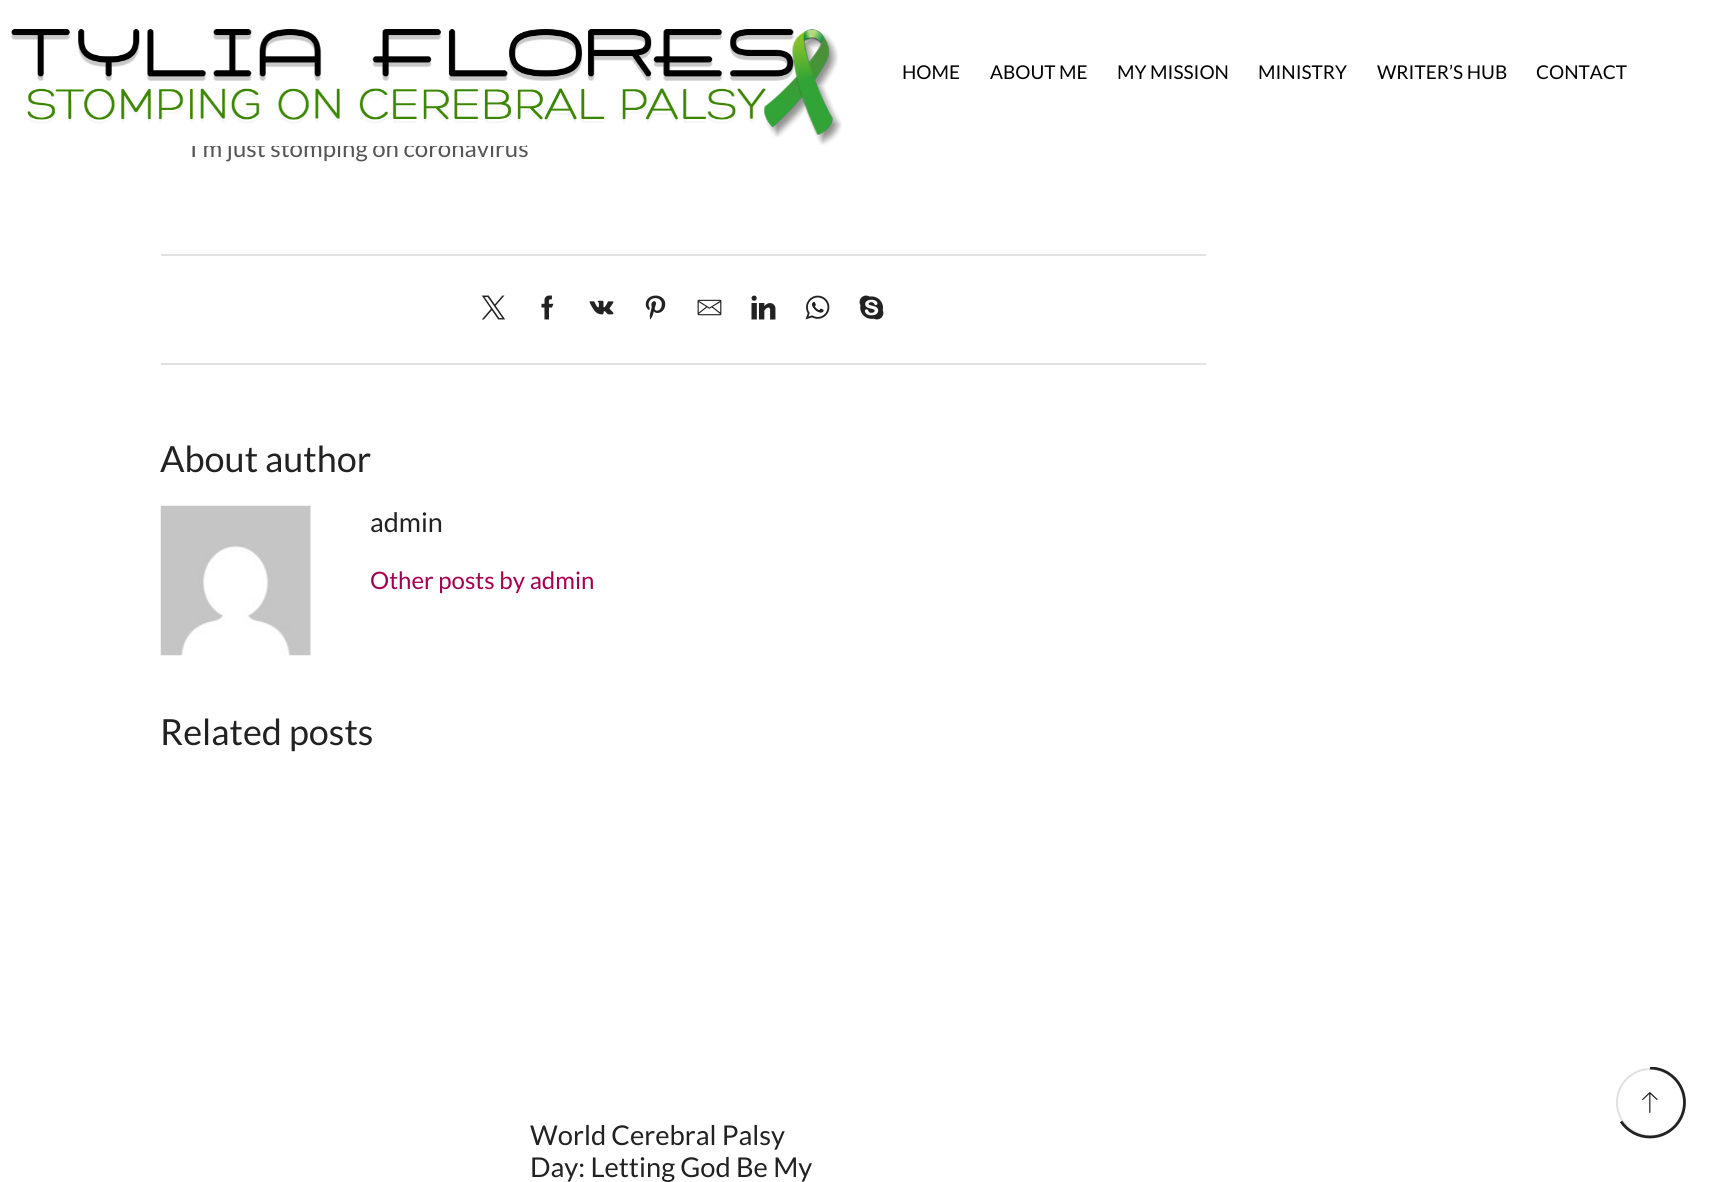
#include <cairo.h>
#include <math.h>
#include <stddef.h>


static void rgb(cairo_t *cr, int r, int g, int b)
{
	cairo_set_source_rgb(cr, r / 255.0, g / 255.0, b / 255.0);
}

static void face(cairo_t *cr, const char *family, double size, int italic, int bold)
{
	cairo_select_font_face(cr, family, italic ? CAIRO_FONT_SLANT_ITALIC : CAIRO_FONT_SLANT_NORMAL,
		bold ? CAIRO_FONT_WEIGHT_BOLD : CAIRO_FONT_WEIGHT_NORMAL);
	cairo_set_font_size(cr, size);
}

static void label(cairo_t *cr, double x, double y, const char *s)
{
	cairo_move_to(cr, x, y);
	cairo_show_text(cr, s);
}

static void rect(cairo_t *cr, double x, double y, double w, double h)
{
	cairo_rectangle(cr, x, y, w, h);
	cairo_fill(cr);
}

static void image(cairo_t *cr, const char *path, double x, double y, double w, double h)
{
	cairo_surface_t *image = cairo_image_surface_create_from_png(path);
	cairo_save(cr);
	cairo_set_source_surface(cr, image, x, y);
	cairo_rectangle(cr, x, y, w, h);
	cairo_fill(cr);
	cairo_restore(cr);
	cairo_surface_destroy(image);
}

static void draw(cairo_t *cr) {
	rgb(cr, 255, 255, 255);
	cairo_paint(cr);
	face(cr, "Lato", 24, 0, 0);
	rgb(cr, 85, 85, 85);
	label(cr, 190, 157, "I’m just stomping on coronavirus");
	rgb(cr, 255, 255, 255);
	rect(cr, 192, 139, 334, 7);
	image(cr, "image0.png", 11, 29, 831, 116);
	face(cr, "Lato", 19, 0, 0);
	rgb(cr, 0, 0, 0);
	label(cr, 902, 79, "HOME");
	label(cr, 990, 79, "ABOUT ME");
	label(cr, 1117, 79, "MY MISSION");
	label(cr, 1258, 79, "MINISTRY");
	label(cr, 1377, 79, "WRITER’S HUB");
	label(cr, 1536, 79, "CONTACT");
	rgb(cr, 225, 225, 225);
	rect(cr, 161, 254, 1045, 2);
	rect(cr, 161, 363, 1045, 2);
	image(cr, "image1.png", 481, 295, 24, 25);
	image(cr, "image2.png", 541, 295, 13, 25);
	image(cr, "image3.png", 589, 300, 25, 15);
	image(cr, "image4.png", 645, 295, 21, 25);
	image(cr, "image5.png", 697, 299, 25, 17);
	image(cr, "image6.png", 751, 295, 25, 25);
	image(cr, "image7.png", 805, 295, 25, 25);
	image(cr, "image8.png", 859, 295, 25, 25);
	face(cr, "Lato", 36, 0, 0);
	rgb(cr, 34, 34, 34);
	label(cr, 160, 472, "About author");
	image(cr, "image9.png", 160, 505, 151, 151);
	face(cr, "Lato", 27, 0, 0);
	label(cr, 370, 532, "admin");
	face(cr, "Lato", 24, 0, 0);
	rgb(cr, 164, 0, 79);
	label(cr, 370, 589, "Other posts by admin");
	face(cr, "Lato", 36, 0, 0);
	rgb(cr, 34, 34, 34);
	label(cr, 160, 745, "Related posts");
	face(cr, "Lato", 27.25, 0, 0);
	label(cr, 530, 1145, "World Cerebral Palsy");
	label(cr, 530, 1177, "Day: Letting God Be My");
	cairo_new_path(cr);
	cairo_arc(cr, 1650.5, 1102.5, 33.5, 0, 2 * M_PI);
	rgb(cr, 225, 225, 225);
	cairo_stroke(cr);
	cairo_save(cr);
	cairo_rectangle(cr, 1614, 1067, 72, 72);
	cairo_clip(cr);
	cairo_new_path(cr);
	cairo_move_to(cr, 1650, 1068);
	cairo_curve_to(cr, 1669, 1068, 1684.5, 1083.5, 1684.5, 1102.5);
	cairo_curve_to(cr, 1684.5, 1121.5, 1669, 1137, 1650, 1137);
	cairo_curve_to(cr, 1638, 1137, 1627.5, 1131, 1621, 1121.5);
	rgb(cr, 34, 34, 34);
	cairo_set_line_width(cr, 2.8);
	cairo_stroke(cr);
	cairo_restore(cr);
	image(cr, "image10.png", 1642, 1092, 16, 21);
}

int main(void) {
	cairo_surface_t *surface = cairo_image_surface_create(CAIRO_FORMAT_RGB24, 1729, 1182);
	cairo_t *cr = cairo_create(surface);
	cairo_font_options_t *options = cairo_font_options_create();
	cairo_font_options_set_hint_metrics(options, CAIRO_HINT_METRICS_OFF);
	cairo_font_options_set_hint_style(options, CAIRO_HINT_STYLE_NONE);
	cairo_set_font_options(cr, options);
	cairo_set_miter_limit(cr, 4);
	draw(cr);
	cairo_surface_write_to_png(surface, "render.png");
	cairo_font_options_destroy(options);
	cairo_destroy(cr);
	cairo_surface_destroy(surface);
	return 0;
}
